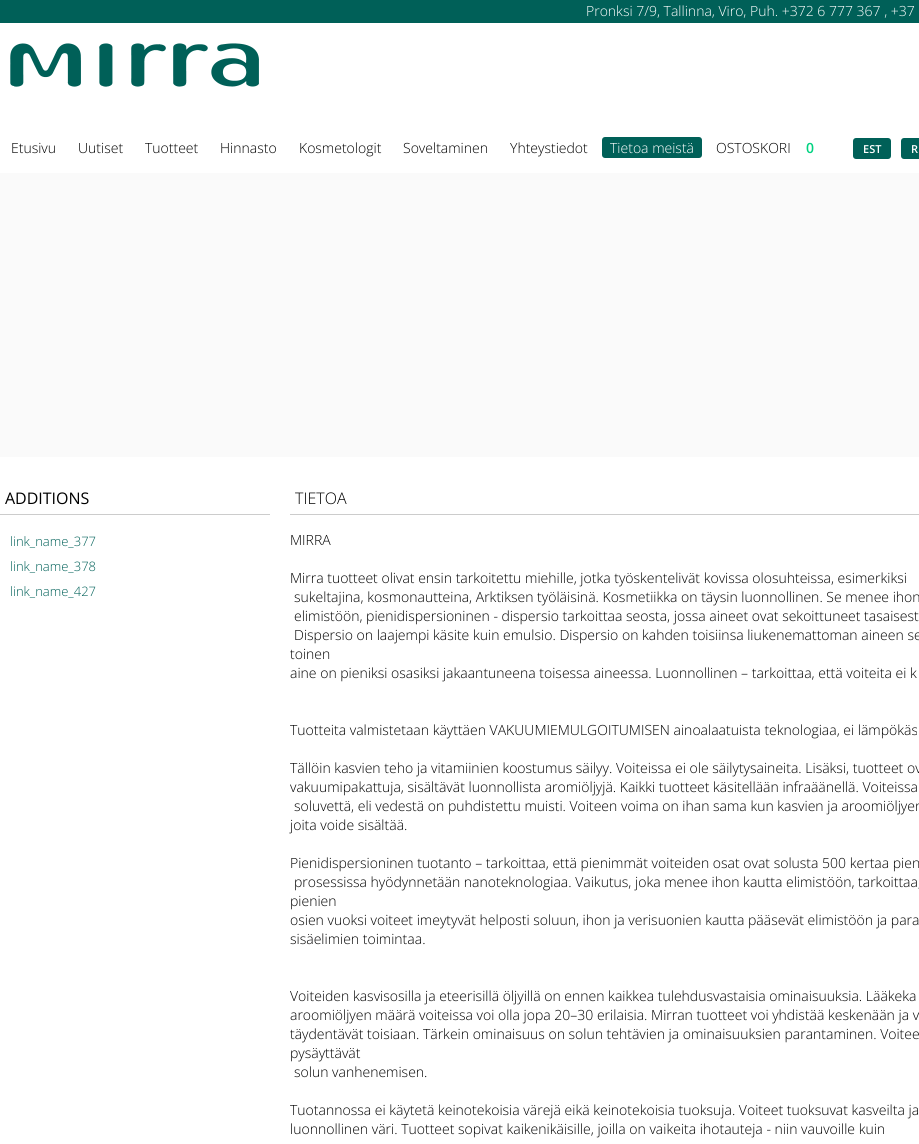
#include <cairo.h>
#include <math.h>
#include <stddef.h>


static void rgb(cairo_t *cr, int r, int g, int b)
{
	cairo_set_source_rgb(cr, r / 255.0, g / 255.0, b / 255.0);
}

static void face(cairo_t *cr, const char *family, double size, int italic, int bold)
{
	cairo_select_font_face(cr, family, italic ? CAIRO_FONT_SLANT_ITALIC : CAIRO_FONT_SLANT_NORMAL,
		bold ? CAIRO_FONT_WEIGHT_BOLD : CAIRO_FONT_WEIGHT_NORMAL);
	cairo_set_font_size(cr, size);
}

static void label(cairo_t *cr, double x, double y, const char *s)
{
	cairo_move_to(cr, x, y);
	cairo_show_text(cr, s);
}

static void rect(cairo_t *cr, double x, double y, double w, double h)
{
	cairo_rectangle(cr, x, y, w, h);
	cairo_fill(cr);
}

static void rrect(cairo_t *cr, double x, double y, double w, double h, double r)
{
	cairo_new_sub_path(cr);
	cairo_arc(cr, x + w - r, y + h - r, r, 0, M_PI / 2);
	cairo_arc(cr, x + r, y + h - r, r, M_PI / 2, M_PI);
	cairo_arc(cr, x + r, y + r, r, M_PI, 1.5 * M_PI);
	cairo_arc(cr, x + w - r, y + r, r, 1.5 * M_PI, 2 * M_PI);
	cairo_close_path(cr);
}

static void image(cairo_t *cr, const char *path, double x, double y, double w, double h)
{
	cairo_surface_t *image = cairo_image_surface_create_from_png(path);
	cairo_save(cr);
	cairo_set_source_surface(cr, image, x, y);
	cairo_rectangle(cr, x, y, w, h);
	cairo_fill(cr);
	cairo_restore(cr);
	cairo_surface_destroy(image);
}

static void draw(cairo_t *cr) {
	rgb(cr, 255, 255, 255);
	cairo_paint(cr);
	rgb(cr, 0, 96, 88);
	rect(cr, 0, 0, 919, 23);
	face(cr, "Open Sans Light", 14, 0, 0);
	rgb(cr, 255, 255, 255);
	label(cr, 586, 16, "Pronksi 7/9, Tallinna, Viro, Puh. +372 6 777 367 , +37");
	image(cr, "image0.png", 10, 43, 249, 44);
	rgb(cr, 0, 0, 0);
	label(cr, 11, 153, "Etusivu");
	label(cr, 78, 153, "Uutiset");
	label(cr, 145, 153, "Tuotteet");
	label(cr, 220, 153, "Hinnasto");
	label(cr, 299, 153, "Kosmetologit");
	label(cr, 403, 153, "Soveltaminen");
	label(cr, 510, 153, "Yhteystiedot");
	rgb(cr, 0, 96, 88);
	rrect(cr, 602, 137, 100, 21, 3);
	cairo_fill(cr);
	rgb(cr, 255, 255, 255);
	label(cr, 610, 153, "Tietoa meistä");
	rgb(cr, 0, 0, 0);
	label(cr, 716, 153, "OSTOSKORI");
	face(cr, "Open Sans SemiBold", 14, 0, 0);
	rgb(cr, 0, 210, 128);
	label(cr, 806, 153, "0");
	rgb(cr, 0, 96, 88);
	rrect(cr, 853, 138, 38, 21, 3);
	cairo_fill(cr);
	face(cr, "Open Sans SemiBold", 11, 0, 0);
	rgb(cr, 255, 255, 255);
	label(cr, 863, 153, "EST");
	rgb(cr, 0, 96, 88);
	rrect(cr, 901, 138, 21, 21, 3);
	cairo_fill(cr);
	rgb(cr, 255, 255, 255);
	label(cr, 911, 153, "R");
	rgb(cr, 250, 250, 250);
	rect(cr, 0, 173, 919, 284);
	rgb(cr, 204, 204, 204);
	rect(cr, 0, 514, 270, 1);
	face(cr, "Open Sans", 16, 0, 0);
	rgb(cr, 0, 0, 0);
	label(cr, 5, 504, "ADDITIONS");
	face(cr, "Open Sans Light", 13, 0, 0);
	rgb(cr, 0, 96, 88);
	label(cr, 10, 546, "link_name_377");
	label(cr, 10, 571, "link_name_378");
	label(cr, 10, 596, "link_name_427");
	rgb(cr, 204, 204, 204);
	rect(cr, 290, 514, 629, 1);
	face(cr, "Open Sans Light", 16, 0, 0);
	rgb(cr, 0, 0, 0);
	label(cr, 295, 504, "TIETOA");
	face(cr, "Open Sans Light", 14, 0, 0);
	label(cr, 290, 545, "MIRRA");
	label(cr, 290, 583, "Mirra tuotteet olivat ensin tarkoitettu miehille, jotka työskentelivät kovissa olosuhteissa, esimerkiksi");
	label(cr, 294, 602, "sukeltajina, kosmonautteina, Arktiksen työläisinä. Kosmetiikka on täysin luonnollinen. Se menee ihon");
	label(cr, 294, 621, "elimistöön, pienidispersioninen - dispersio tarkoittaa seosta, jossa aineet ovat sekoittuneet tasaisest");
	label(cr, 294, 640, "Dispersio on laajempi käsite kuin emulsio. Dispersio on kahden toisiinsa liukenemattoman aineen se");
	label(cr, 290, 659, "toinen");
	label(cr, 290, 678, "aine on pieniksi osasiksi jakaantuneena toisessa aineessa. Luonnollinen – tarkoittaa, että voiteita ei k");
	label(cr, 290, 735, "Tuotteita valmistetaan käyttäen VAKUUMIEMULGOITUMISEN ainoalaatuista teknologiaa, ei lämpökäs");
	label(cr, 290, 773, "Tällöin kasvien teho ja vitamiinien koostumus säilyy. Voiteissa ei ole säilytysaineita. Lisäksi, tuotteet ov");
	label(cr, 290, 792, "vakuumipakattuja, sisältävät luonnollista aromiöljyjä. Kaikki tuotteet käsitellään infraäänellä. Voiteissa");
	label(cr, 294, 811, "soluvettä, eli vedestä on puhdistettu muisti. Voiteen voima on ihan sama kun kasvien ja aroomiöljyen");
	label(cr, 290, 830, "joita voide sisältää.");
	label(cr, 290, 868, "Pienidispersioninen tuotanto – tarkoittaa, että pienimmät voiteiden osat ovat solusta 500 kertaa pien");
	label(cr, 294, 887, "prosessissa hyödynnetään nanoteknologiaa. Vaikutus, joka menee ihon kautta elimistöön, tarkoittaa,");
	label(cr, 290, 906, "pienien");
	label(cr, 290, 925, "osien vuoksi voiteet imeytyvät helposti soluun, ihon ja verisuonien kautta pääsevät elimistöön ja para");
	label(cr, 290, 944, "sisäelimien toimintaa.");
	label(cr, 290, 1001, "Voiteiden kasvisosilla ja eteerisillä öljyillä on ennen kaikkea tulehdusvastaisia ominaisuuksia. Lääkeka");
	label(cr, 290, 1020, "aroomiöljyen määrä voiteissa voi olla jopa 20–30 erilaisia. Mirran tuotteet voi yhdistää keskenään ja v");
	label(cr, 290, 1039, "täydentävät toisiaan. Tärkein ominaisuus on solun tehtävien ja ominaisuuksien parantaminen. Voitee");
	label(cr, 290, 1058, "pysäyttävät");
	label(cr, 294, 1077, "solun vanhenemisen.");
	label(cr, 290, 1115, "Tuotannossa ei käytetä keinotekoisia värejä eikä keinotekoisia tuoksuja. Voiteet tuoksuvat kasveilta ja");
	label(cr, 290, 1134, "luonnollinen väri. Tuotteet sopivat kaikenikäisille, joilla on vaikeita ihotauteja - niin vauvoille kuin");
}

int main(void) {
	cairo_surface_t *surface = cairo_image_surface_create(CAIRO_FORMAT_RGB24, 919, 1144);
	cairo_t *cr = cairo_create(surface);
	cairo_font_options_t *options = cairo_font_options_create();
	cairo_font_options_set_hint_metrics(options, CAIRO_HINT_METRICS_OFF);
	cairo_font_options_set_hint_style(options, CAIRO_HINT_STYLE_NONE);
	cairo_set_font_options(cr, options);
	cairo_set_miter_limit(cr, 4);
	draw(cr);
	cairo_surface_write_to_png(surface, "render.png");
	cairo_font_options_destroy(options);
	cairo_destroy(cr);
	cairo_surface_destroy(surface);
	return 0;
}
